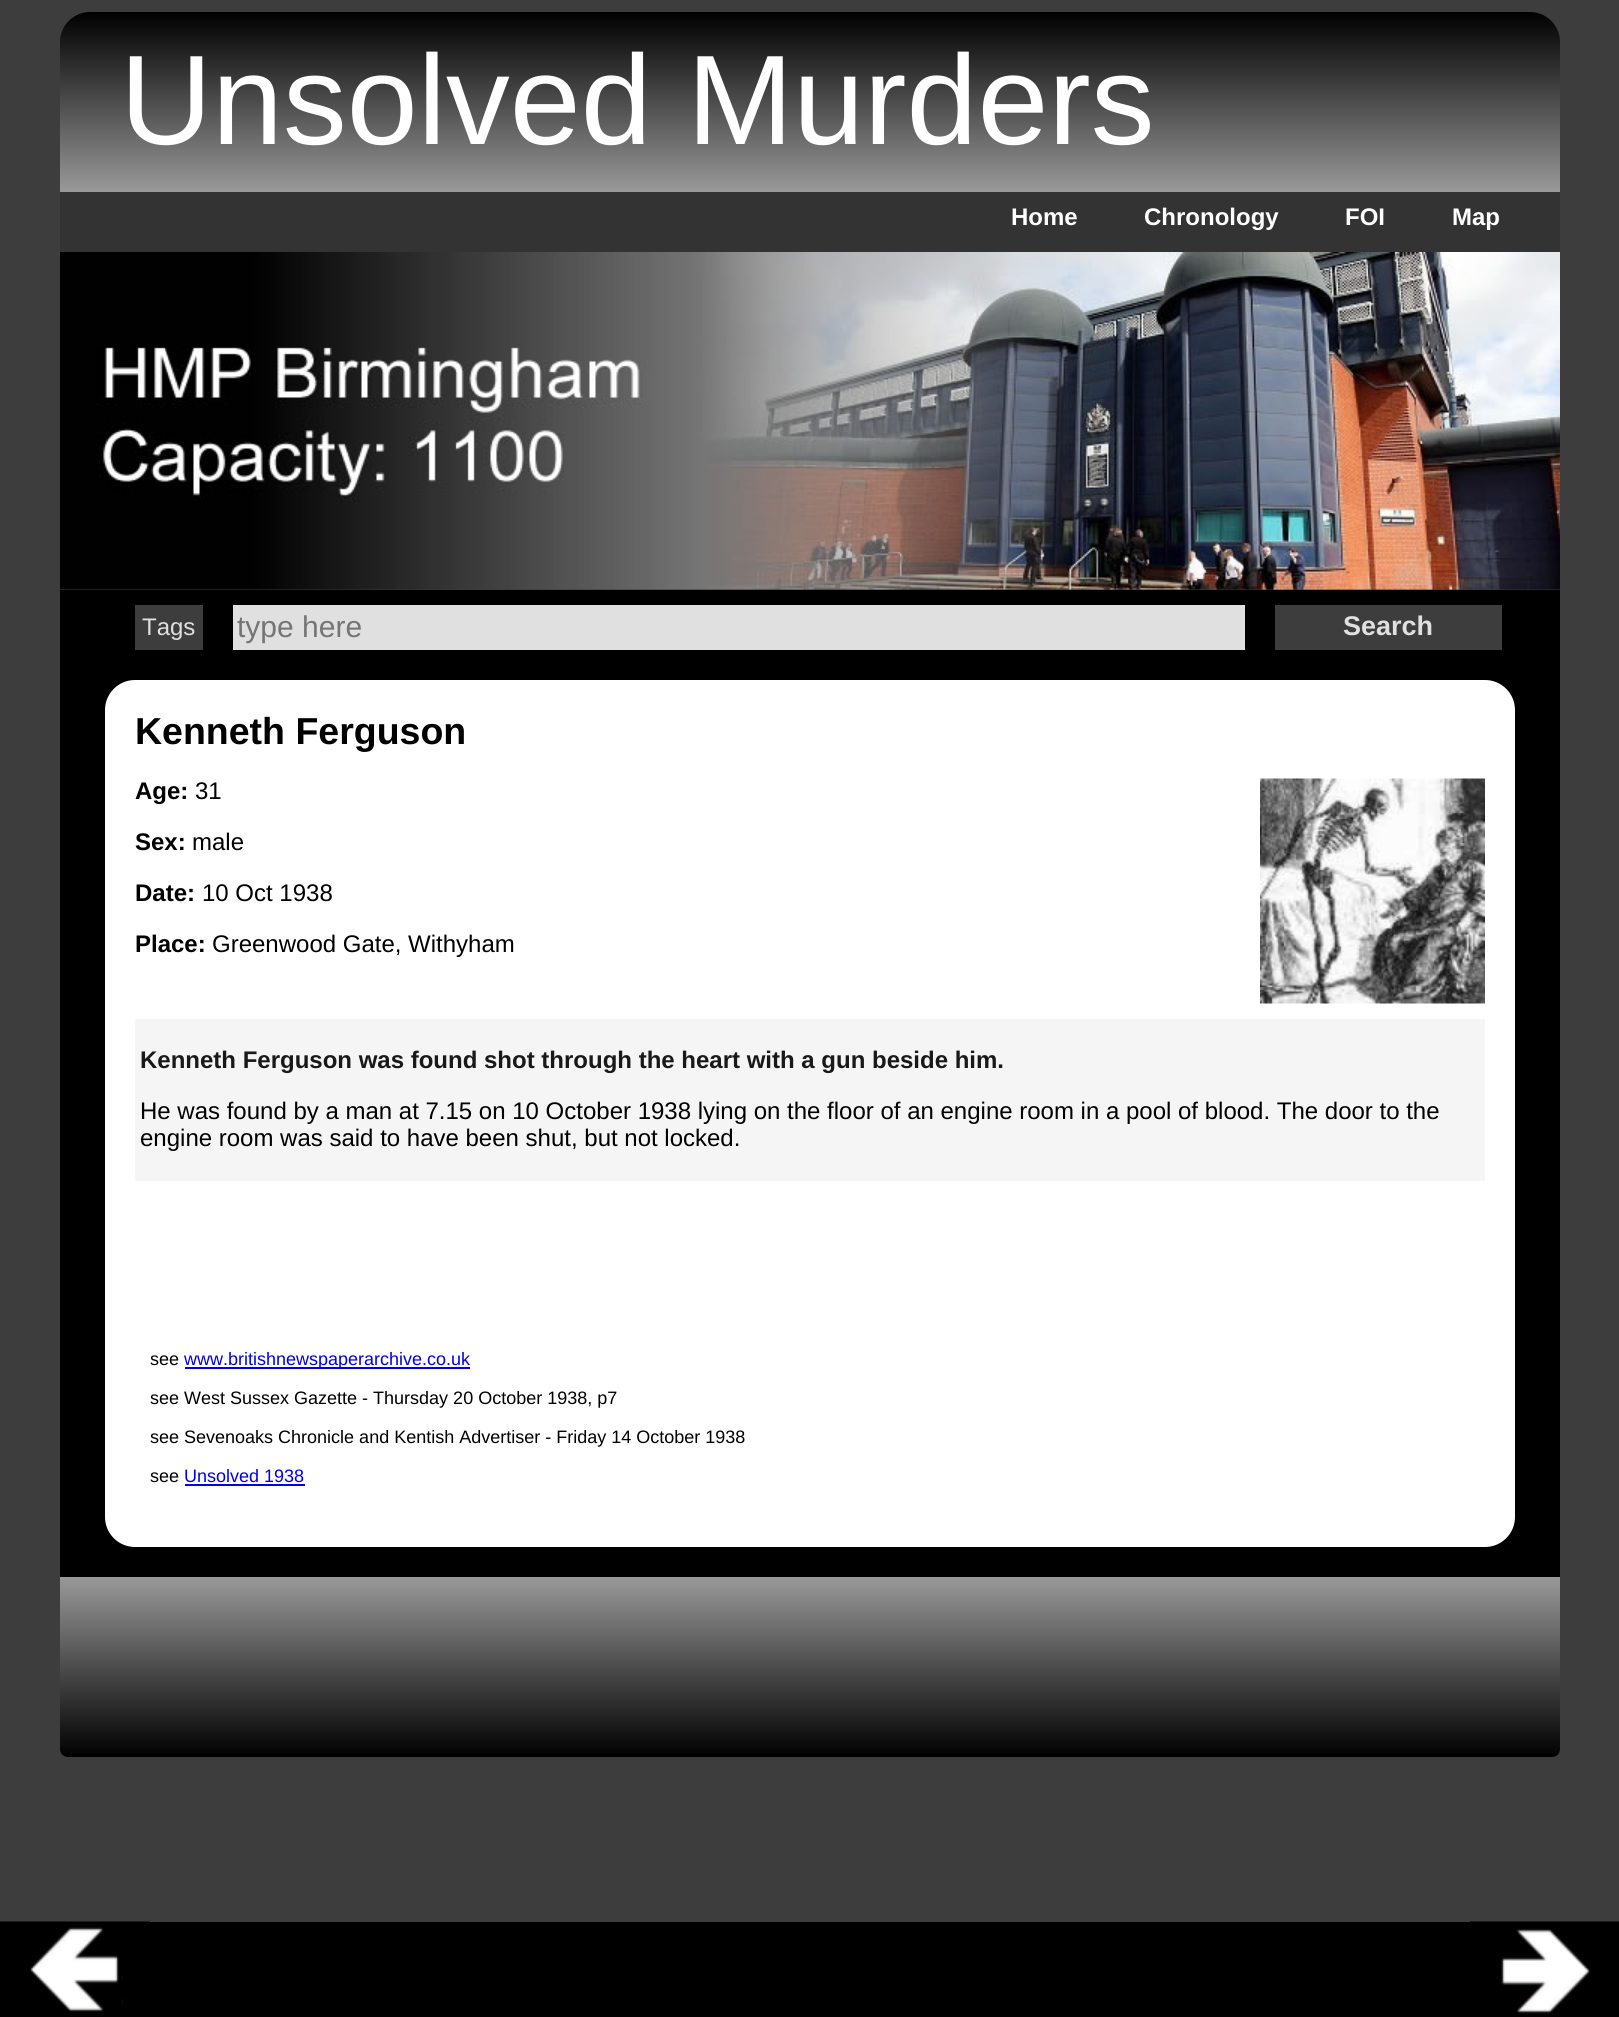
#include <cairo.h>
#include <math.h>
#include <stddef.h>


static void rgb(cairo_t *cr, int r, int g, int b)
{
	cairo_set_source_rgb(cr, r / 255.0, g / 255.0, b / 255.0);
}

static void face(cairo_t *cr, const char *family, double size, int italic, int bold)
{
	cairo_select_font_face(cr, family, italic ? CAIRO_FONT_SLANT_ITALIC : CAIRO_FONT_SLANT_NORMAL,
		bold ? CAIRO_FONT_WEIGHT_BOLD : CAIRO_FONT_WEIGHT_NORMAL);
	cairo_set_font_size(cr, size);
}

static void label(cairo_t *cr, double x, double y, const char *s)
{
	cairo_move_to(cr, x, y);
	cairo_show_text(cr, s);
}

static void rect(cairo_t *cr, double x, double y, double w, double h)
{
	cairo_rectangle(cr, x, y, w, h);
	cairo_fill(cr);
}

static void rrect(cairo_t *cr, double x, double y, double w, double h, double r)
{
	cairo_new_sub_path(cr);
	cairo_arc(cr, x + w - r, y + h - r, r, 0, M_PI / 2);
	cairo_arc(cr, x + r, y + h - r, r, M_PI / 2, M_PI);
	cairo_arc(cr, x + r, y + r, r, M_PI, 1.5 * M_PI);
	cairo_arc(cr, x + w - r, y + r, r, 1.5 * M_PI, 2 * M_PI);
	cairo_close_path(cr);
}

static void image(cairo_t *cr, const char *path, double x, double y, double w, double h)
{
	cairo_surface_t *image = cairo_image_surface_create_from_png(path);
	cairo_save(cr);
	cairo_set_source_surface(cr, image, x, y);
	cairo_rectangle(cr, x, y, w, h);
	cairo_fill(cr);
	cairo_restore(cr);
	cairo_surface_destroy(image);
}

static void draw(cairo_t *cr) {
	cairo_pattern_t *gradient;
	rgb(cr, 61, 61, 61);
	cairo_paint(cr);
	gradient = cairo_pattern_create_linear(60, 12, 60, 192);
	cairo_pattern_add_color_stop_rgba(gradient, 0, 0, 0, 0, 1);
	cairo_pattern_add_color_stop_rgba(gradient, 1, 0.6, 0.6, 0.6, 1);
	cairo_set_source(cr, gradient);
	cairo_pattern_destroy(gradient);
	cairo_new_path(cr);
	cairo_move_to(cr, 90, 12);
	cairo_line_to(cr, 1530, 12);
	cairo_curve_to(cr, 1546.5, 12, 1560, 25.5, 1560, 42);
	cairo_line_to(cr, 1560, 192);
	cairo_line_to(cr, 60, 192);
	cairo_line_to(cr, 60, 42);
	cairo_curve_to(cr, 60, 25.5, 73.5, 12, 90, 12);
	cairo_close_path(cr);
	cairo_fill(cr);
	face(cr, "Liberation Sans", 127.5, 0, 0);
	rgb(cr, 255, 255, 255);
	label(cr, 120, 144, "Unsolved Murders");
	rgb(cr, 51, 51, 51);
	rect(cr, 60, 192, 1500, 60);
	face(cr, "Liberation Sans", 24, 0, 1);
	rgb(cr, 255, 255, 255);
	label(cr, 1011, 225, "Home");
	label(cr, 1144, 225, "Chronology");
	label(cr, 1345, 225, "FOI");
	label(cr, 1452, 225, "Map");
	image(cr, "image0.png", 60, 252, 1500, 338);
	rgb(cr, 0, 0, 0);
	rect(cr, 60, 590, 1500, 987);
	rgb(cr, 61, 61, 61);
	rect(cr, 135, 605, 68, 45);
	face(cr, "Liberation Sans", 24, 0, 0);
	rgb(cr, 224, 224, 224);
	label(cr, 142, 635, "Tags");
	rect(cr, 233, 605, 1012, 45);
	face(cr, "Liberation Sans", 30, 0, 0);
	rgb(cr, 117, 117, 117);
	label(cr, 237, 637, "type here");
	rgb(cr, 61, 61, 61);
	rect(cr, 1275, 605, 227, 45);
	face(cr, "Liberation Sans", 27, 0, 1);
	rgb(cr, 224, 224, 224);
	label(cr, 1343, 635, "Search");
	rgb(cr, 255, 255, 255);
	rrect(cr, 105, 680, 1410, 867, 30);
	cairo_fill(cr);
	face(cr, "Liberation Sans", 37.5, 0, 1);
	rgb(cr, 0, 0, 0);
	label(cr, 135, 744, "Kenneth Ferguson");
	face(cr, "Liberation Sans", 24, 0, 1);
	label(cr, 135, 799, "Age:");
	face(cr, "Liberation Sans", 24, 0, 0);
	label(cr, 195, 799, "31");
	image(cr, "image1.png", 1260, 778, 225, 226);
	face(cr, "Liberation Sans", 24, 0, 1);
	label(cr, 135, 850, "Sex:");
	face(cr, "Liberation Sans", 24, 0, 0);
	label(cr, 192, 850, "male");
	face(cr, "Liberation Sans", 24, 0, 1);
	label(cr, 135, 901, "Date:");
	face(cr, "Liberation Sans", 24, 0, 0);
	label(cr, 202, 901, "10 Oct 1938");
	face(cr, "Liberation Sans", 24, 0, 1);
	label(cr, 135, 952, "Place:");
	face(cr, "Liberation Sans", 24, 0, 0);
	label(cr, 212, 952, "Greenwood Gate, Withyham");
	rgb(cr, 245, 245, 245);
	rect(cr, 135, 1019, 1350, 162);
	face(cr, "Liberation Sans", 24, 0, 1);
	rgb(cr, 25, 25, 25);
	label(cr, 140, 1068, "Kenneth Ferguson was found shot through the heart with a gun beside him.");
	face(cr, "Liberation Sans", 24, 0, 0);
	rgb(cr, 0, 0, 0);
	label(cr, 140, 1119, "He was found by a man at 7.15 on 10 October 1938 lying on the floor of an engine room in a pool of blood. The door to the");
	label(cr, 140, 1146, "engine room was said to have been shut, but not locked.");
	face(cr, "Liberation Sans", 18, 0, 0);
	label(cr, 150, 1365, "see");
	rgb(cr, 0, 0, 238);
	rect(cr, 185, 1367, 285, 2);
	label(cr, 184, 1365, "www.britishnewspaperarchive.co.uk");
	rgb(cr, 0, 0, 0);
	label(cr, 150, 1404, "see West Sussex Gazette - Thursday 20 October 1938, p7");
	label(cr, 150, 1443, "see Sevenoaks Chronicle and Kentish Advertiser - Friday 14 October 1938");
	label(cr, 150, 1482, "see");
	rgb(cr, 0, 0, 238);
	label(cr, 184, 1482, "Unsolved 1938");
	rect(cr, 185, 1484, 120, 2);
	gradient = cairo_pattern_create_linear(60, 1577, 60, 1757);
	cairo_pattern_add_color_stop_rgba(gradient, 0, 0.6, 0.6, 0.6, 1);
	cairo_pattern_add_color_stop_rgba(gradient, 1, 0, 0, 0, 1);
	cairo_set_source(cr, gradient);
	cairo_pattern_destroy(gradient);
	cairo_new_path(cr);
	cairo_move_to(cr, 60, 1577);
	cairo_line_to(cr, 1560, 1577);
	cairo_line_to(cr, 1560, 1749);
	cairo_curve_to(cr, 1560, 1753.5, 1556.5, 1757, 1552, 1757);
	cairo_line_to(cr, 68, 1757);
	cairo_curve_to(cr, 63.5, 1757, 60, 1753.5, 60, 1749);
	cairo_close_path(cr);
	cairo_fill(cr);
	rgb(cr, 0, 0, 0);
	rect(cr, 0, 1922, 1619, 95);
	image(cr, "image2.png", 0, 1921, 150, 91);
	image(cr, "image3.png", 1470, 1921, 149, 93);
}

int main(void) {
	cairo_surface_t *surface = cairo_image_surface_create(CAIRO_FORMAT_RGB24, 1619, 2017);
	cairo_t *cr = cairo_create(surface);
	cairo_font_options_t *options = cairo_font_options_create();
	cairo_font_options_set_hint_metrics(options, CAIRO_HINT_METRICS_OFF);
	cairo_font_options_set_hint_style(options, CAIRO_HINT_STYLE_NONE);
	cairo_set_font_options(cr, options);
	cairo_set_miter_limit(cr, 4);
	draw(cr);
	cairo_surface_write_to_png(surface, "render.png");
	cairo_font_options_destroy(options);
	cairo_destroy(cr);
	cairo_surface_destroy(surface);
	return 0;
}
